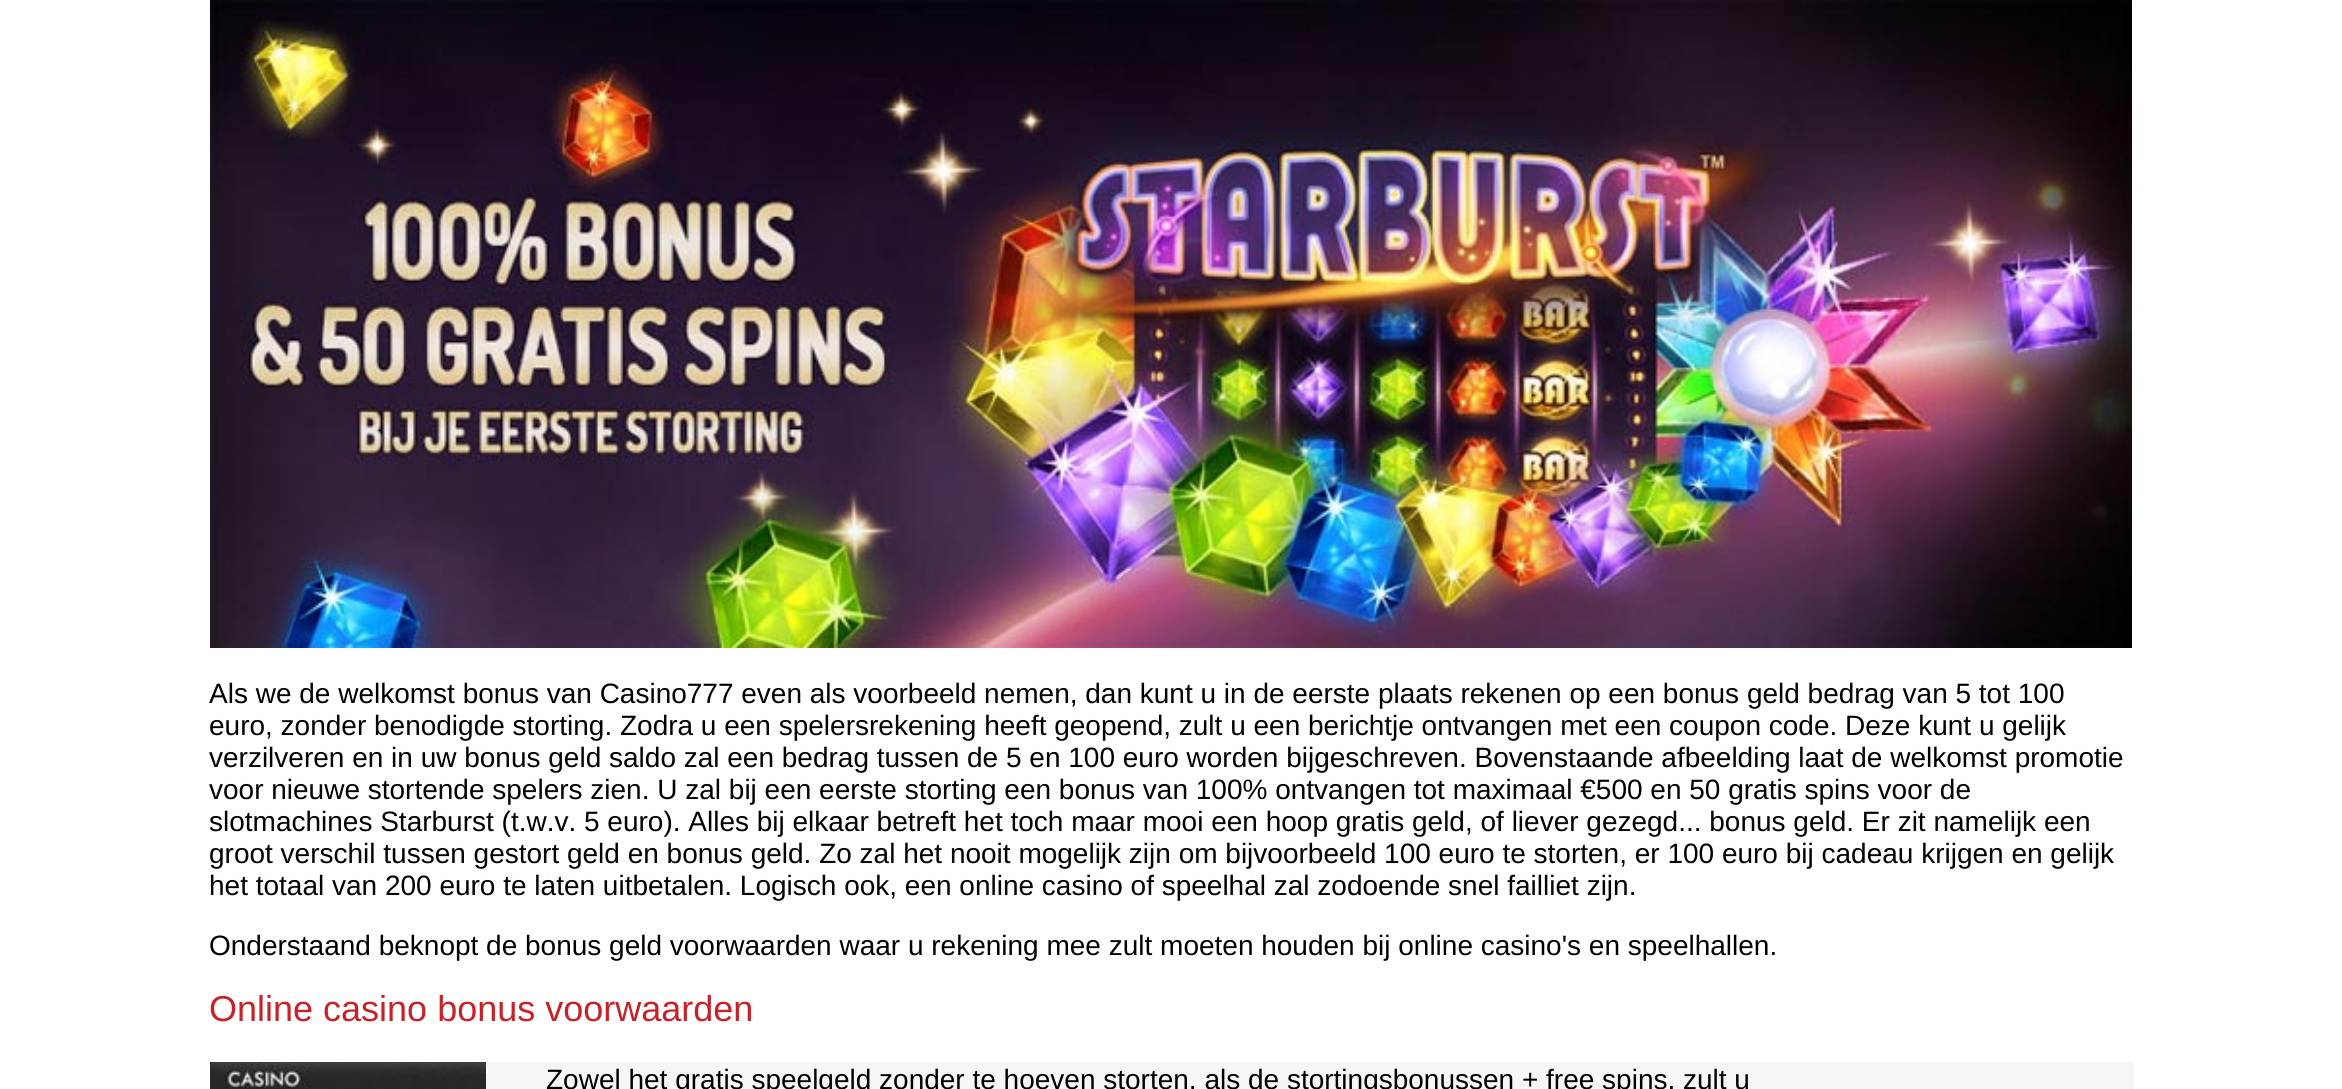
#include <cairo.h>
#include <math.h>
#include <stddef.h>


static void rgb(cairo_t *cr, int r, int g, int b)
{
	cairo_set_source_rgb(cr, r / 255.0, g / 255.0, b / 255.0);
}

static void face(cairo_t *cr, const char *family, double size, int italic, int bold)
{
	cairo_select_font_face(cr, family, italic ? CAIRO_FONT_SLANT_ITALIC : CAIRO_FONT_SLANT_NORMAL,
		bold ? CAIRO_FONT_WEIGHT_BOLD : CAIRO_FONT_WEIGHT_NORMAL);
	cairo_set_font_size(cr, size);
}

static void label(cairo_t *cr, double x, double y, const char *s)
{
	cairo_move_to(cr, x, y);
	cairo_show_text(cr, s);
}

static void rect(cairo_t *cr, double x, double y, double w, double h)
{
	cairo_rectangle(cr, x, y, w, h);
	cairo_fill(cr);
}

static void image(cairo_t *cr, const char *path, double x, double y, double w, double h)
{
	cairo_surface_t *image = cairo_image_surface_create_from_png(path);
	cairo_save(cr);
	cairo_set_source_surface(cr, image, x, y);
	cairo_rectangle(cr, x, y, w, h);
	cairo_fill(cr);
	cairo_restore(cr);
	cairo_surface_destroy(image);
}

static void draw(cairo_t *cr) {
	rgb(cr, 255, 255, 255);
	cairo_paint(cr);
	image(cr, "image0.png", 210, 0, 1922, 648);
	face(cr, "Liberation Sans", 28, 0, 0);
	rgb(cr, 0, 0, 0);
	label(cr, 209, 703, "Als we de welkomst bonus van Casino777 even als voorbeeld nemen, dan kunt u in de eerste plaats rekenen op een bonus geld bedrag van 5 tot 100");
	label(cr, 209, 735, "euro, zonder benodigde storting. Zodra u een spelersrekening heeft geopend, zult u een berichtje ontvangen met een coupon code. Deze kunt u gelijk");
	label(cr, 209, 767, "verzilveren en in uw bonus geld saldo zal een bedrag tussen de 5 en 100 euro worden bijgeschreven. Bovenstaande afbeelding laat de welkomst promotie");
	label(cr, 209, 799, "voor nieuwe stortende spelers zien. U zal bij een eerste storting een bonus van 100% ontvangen tot maximaal €500 en 50 gratis spins voor de");
	label(cr, 209, 831, "slotmachines Starburst (t.w.v. 5 euro). Alles bij elkaar betreft het toch maar mooi een hoop gratis geld, of liever gezegd... bonus geld. Er zit namelijk een");
	label(cr, 209, 863, "groot verschil tussen gestort geld en bonus geld. Zo zal het nooit mogelijk zijn om bijvoorbeeld 100 euro te storten, er 100 euro bij cadeau krijgen en gelijk");
	label(cr, 209, 895, "het totaal van 200 euro te laten uitbetalen. Logisch ook, een online casino of speelhal zal zodoende snel failliet zijn.");
	label(cr, 209, 955, "Onderstaand beknopt de bonus geld voorwaarden waar u rekening mee zult moeten houden bij online casino's en speelhallen.");
	face(cr, "Liberation Sans", 36, 0, 0);
	rgb(cr, 200, 33, 40);
	label(cr, 209, 1021, "Online casino bonus voorwaarden");
	rgb(cr, 246, 246, 246);
	rect(cr, 486, 1062, 1648, 27);
	image(cr, "image1.png", 210, 1062, 276, 27);
	face(cr, "Liberation Sans", 28, 0, 0);
	rgb(cr, 0, 0, 0);
	label(cr, 546, 1089, "Zowel het gratis speelgeld zonder te hoeven storten, als de stortingsbonussen + free spins, zult u");
}

int main(void) {
	cairo_surface_t *surface = cairo_image_surface_create(CAIRO_FORMAT_RGB24, 2342, 1089);
	cairo_t *cr = cairo_create(surface);
	cairo_font_options_t *options = cairo_font_options_create();
	cairo_font_options_set_hint_metrics(options, CAIRO_HINT_METRICS_OFF);
	cairo_font_options_set_hint_style(options, CAIRO_HINT_STYLE_NONE);
	cairo_set_font_options(cr, options);
	cairo_set_miter_limit(cr, 4);
	draw(cr);
	cairo_surface_write_to_png(surface, "render.png");
	cairo_font_options_destroy(options);
	cairo_destroy(cr);
	cairo_surface_destroy(surface);
	return 0;
}
